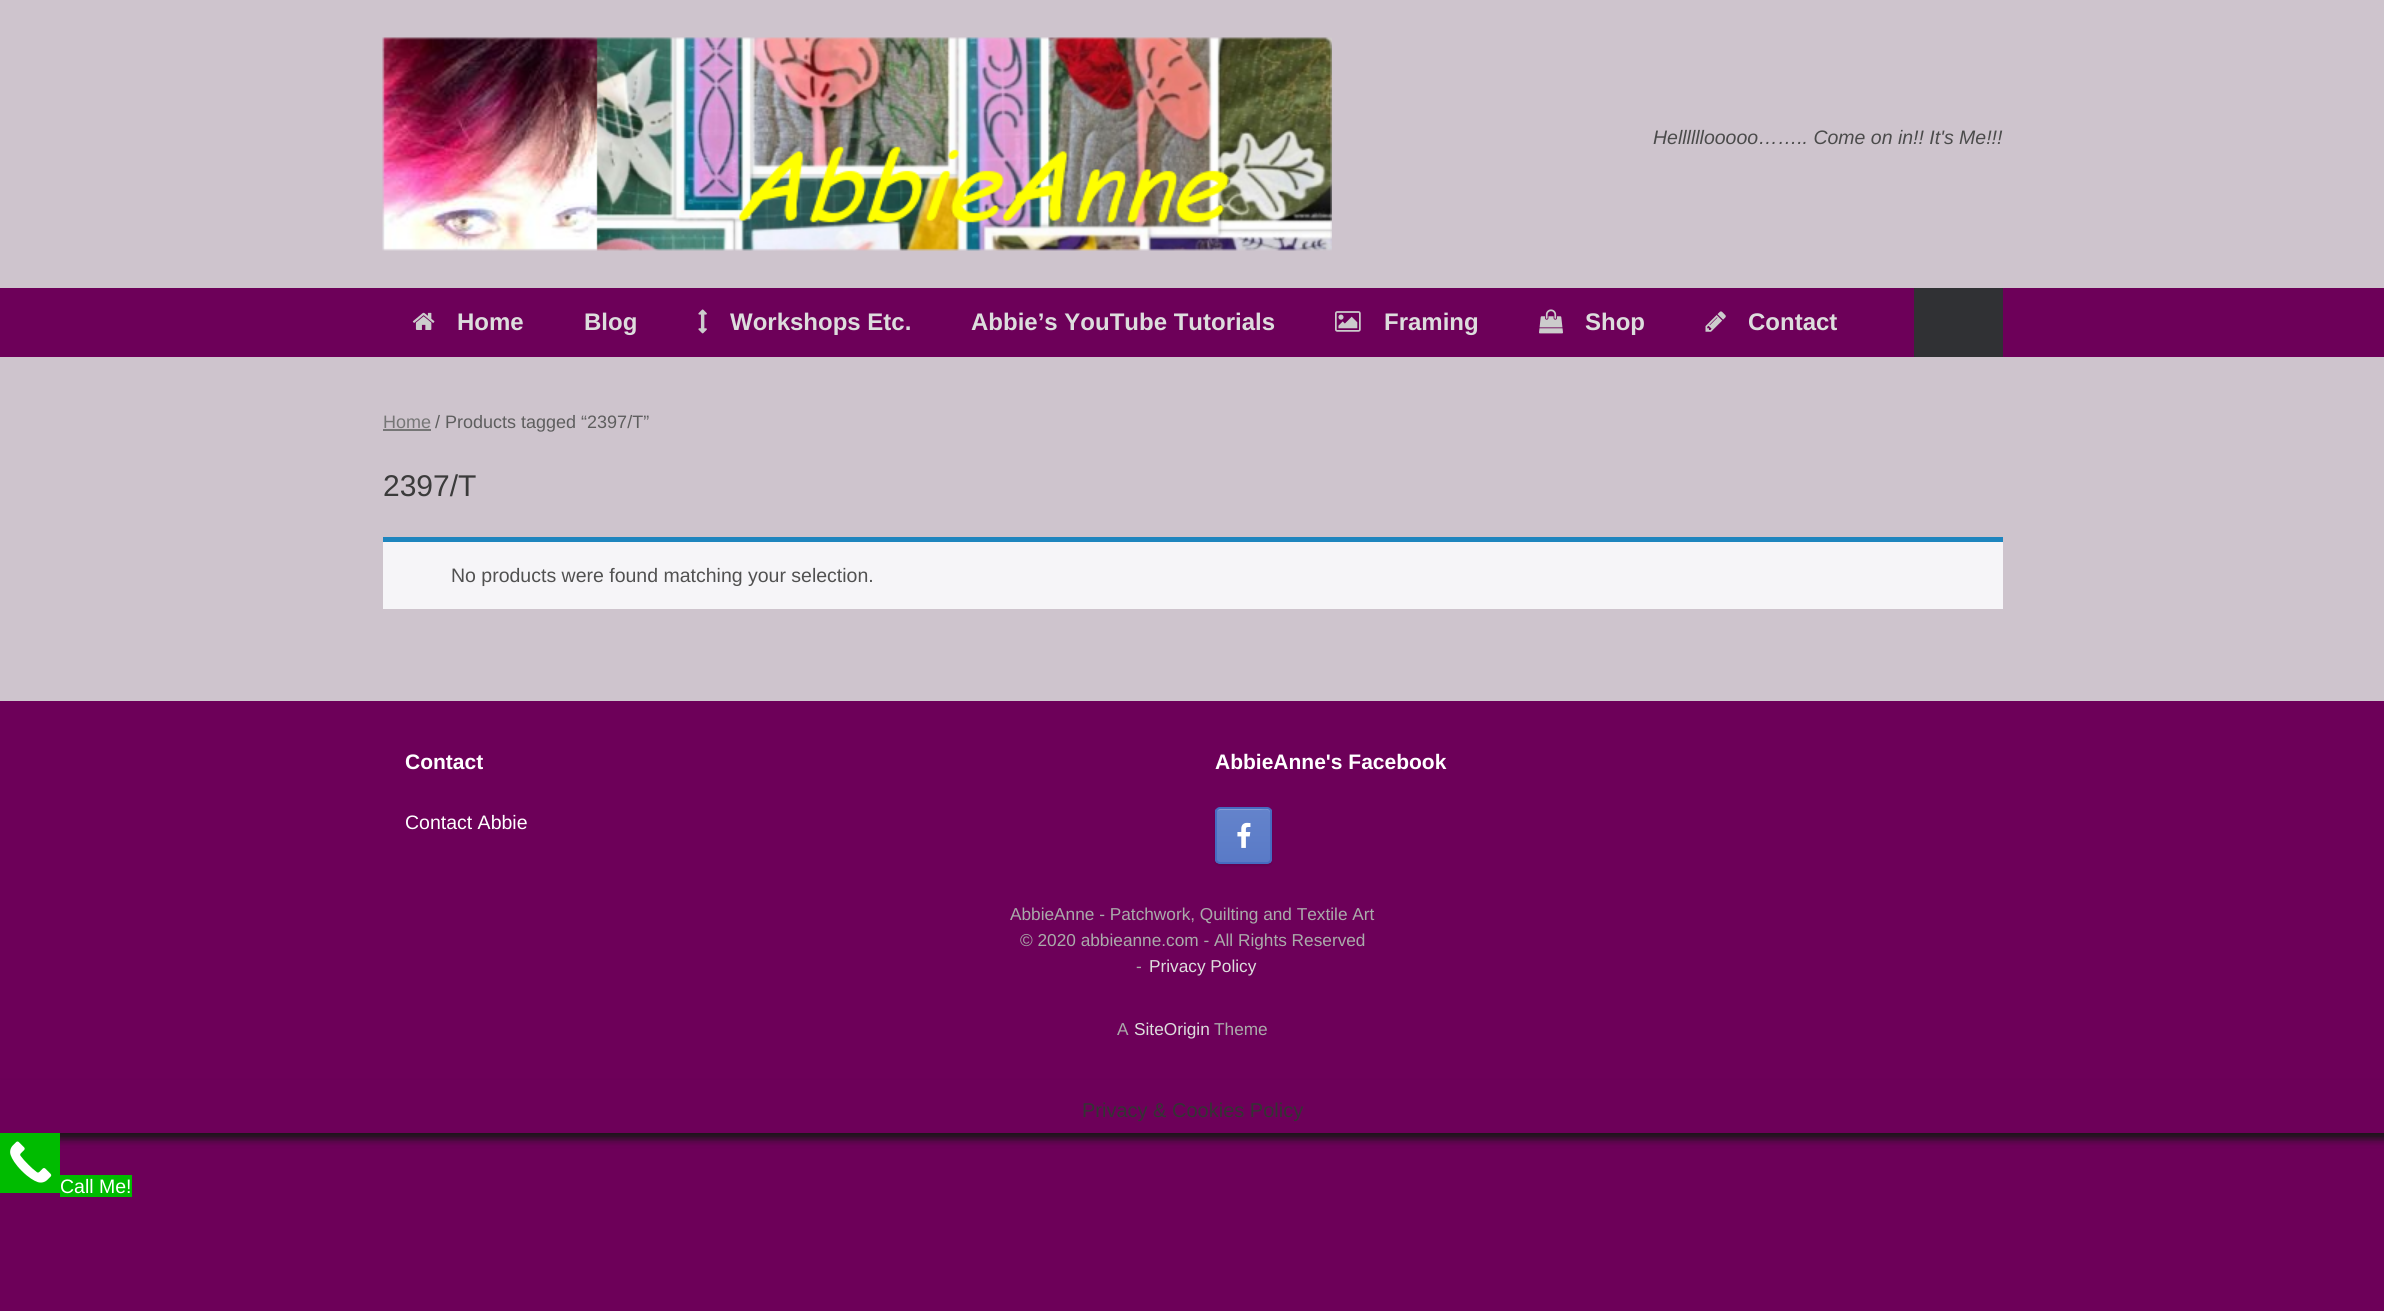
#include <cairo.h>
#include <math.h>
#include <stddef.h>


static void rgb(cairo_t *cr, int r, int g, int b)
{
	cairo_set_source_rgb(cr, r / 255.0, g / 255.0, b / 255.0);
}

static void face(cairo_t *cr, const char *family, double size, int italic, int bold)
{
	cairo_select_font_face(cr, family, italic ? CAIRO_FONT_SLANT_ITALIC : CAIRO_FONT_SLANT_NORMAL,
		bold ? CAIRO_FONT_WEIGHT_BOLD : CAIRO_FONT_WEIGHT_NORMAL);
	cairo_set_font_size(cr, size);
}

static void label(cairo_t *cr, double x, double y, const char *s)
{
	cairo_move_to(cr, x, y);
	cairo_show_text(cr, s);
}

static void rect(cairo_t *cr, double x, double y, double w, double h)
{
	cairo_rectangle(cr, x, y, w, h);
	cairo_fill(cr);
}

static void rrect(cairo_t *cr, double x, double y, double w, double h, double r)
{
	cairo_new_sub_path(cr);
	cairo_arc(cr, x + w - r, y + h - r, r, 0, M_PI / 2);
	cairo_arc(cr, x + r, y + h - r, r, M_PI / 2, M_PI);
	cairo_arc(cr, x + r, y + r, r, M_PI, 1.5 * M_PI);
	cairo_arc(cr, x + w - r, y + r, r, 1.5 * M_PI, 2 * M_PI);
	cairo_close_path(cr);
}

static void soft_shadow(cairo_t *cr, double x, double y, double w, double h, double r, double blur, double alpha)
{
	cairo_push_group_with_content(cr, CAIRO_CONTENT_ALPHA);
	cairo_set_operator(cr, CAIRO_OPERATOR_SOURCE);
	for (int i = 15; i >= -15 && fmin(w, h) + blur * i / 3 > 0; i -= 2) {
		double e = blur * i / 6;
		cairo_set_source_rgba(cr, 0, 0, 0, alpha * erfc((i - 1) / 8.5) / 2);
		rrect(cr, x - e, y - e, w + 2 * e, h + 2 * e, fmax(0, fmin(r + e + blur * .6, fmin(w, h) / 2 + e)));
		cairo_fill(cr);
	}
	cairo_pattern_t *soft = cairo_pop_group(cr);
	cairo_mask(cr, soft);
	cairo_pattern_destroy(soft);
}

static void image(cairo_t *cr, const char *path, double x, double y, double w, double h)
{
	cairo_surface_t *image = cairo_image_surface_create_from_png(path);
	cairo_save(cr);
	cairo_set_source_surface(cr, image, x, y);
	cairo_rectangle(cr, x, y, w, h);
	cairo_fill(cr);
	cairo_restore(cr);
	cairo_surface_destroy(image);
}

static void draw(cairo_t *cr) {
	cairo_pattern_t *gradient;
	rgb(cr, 109, 0, 89);
	cairo_paint(cr);
	rgb(cr, 206, 196, 205);
	rect(cr, 0, 0, 2384, 288);
	image(cr, "image0.png", 382, 37, 950, 214);
	face(cr, "Liberation Sans", 19.5, 1, 0);
	rgb(cr, 75, 75, 75);
	label(cr, 1653, 144, "Hellllllooooo…….. Come on in!! It's Me!!!");
	image(cr, "image1.png", 412, 312, 23, 18);
	face(cr, "Liberation Sans", 24, 0, 1);
	rgb(cr, 221, 221, 221);
	label(cr, 457, 330, "Home");
	label(cr, 584, 330, "Blog");
	image(cr, "image2.png", 698, 309, 9, 25);
	label(cr, 730, 330, "Workshops Etc.");
	label(cr, 971, 330, "Abbie’s YouTube Tutorials");
	image(cr, "image3.png", 1335, 311, 26, 21);
	label(cr, 1384, 330, "Framing");
	image(cr, "image4.png", 1539, 309, 24, 25);
	label(cr, 1585, 330, "Shop");
	image(cr, "image5.png", 1705, 311, 21, 21);
	label(cr, 1748, 330, "Contact");
	rgb(cr, 48, 49, 52);
	rect(cr, 1914, 288, 89, 69);
	rgb(cr, 206, 196, 205);
	rect(cr, 0, 357, 2384, 344);
	face(cr, "Liberation Sans", 18, 0, 0);
	rgb(cr, 118, 118, 118);
	label(cr, 383, 428, "Home");
	rect(cr, 383, 429, 48, 2);
	rgb(cr, 94, 94, 94);
	label(cr, 435, 428, "/ Products tagged “2397/T”");
	face(cr, "Liberation Sans", 30, 0, 0);
	rgb(cr, 59, 59, 59);
	label(cr, 383, 496, "2397/T");
	rgb(cr, 246, 245, 248);
	rect(cr, 383, 542, 1620, 67);
	rgb(cr, 30, 133, 190);
	rect(cr, 383, 537, 1620, 5);
	face(cr, "Liberation Sans", 19.5, 0, 0);
	rgb(cr, 81, 81, 81);
	label(cr, 451, 582, "No products were found matching your selection.");
	cairo_save(cr);
	cairo_set_fill_rule(cr, CAIRO_FILL_RULE_EVEN_ODD);
	cairo_new_path(cr);
	cairo_move_to(cr, 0, 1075);
	cairo_line_to(cr, 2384, 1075);
	cairo_line_to(cr, 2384, 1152);
	cairo_line_to(cr, 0, 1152);
	cairo_close_path(cr);
	cairo_move_to(cr, 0, 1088);
	cairo_line_to(cr, 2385, 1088);
	cairo_line_to(cr, 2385, 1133);
	cairo_line_to(cr, 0, 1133);
	cairo_close_path(cr);
	cairo_clip(cr);
	rgb(cr, 22, 22, 22);
	soft_shadow(cr, 0, 1088, 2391, 51, 0, 4, 1);
	cairo_restore(cr);
	rgb(cr, 109, 0, 89);
	rect(cr, 0, 1080, 2384, 8);
	face(cr, "Liberation Sans", 21, 0, 1);
	rgb(cr, 255, 255, 255);
	label(cr, 405, 769, "Contact");
	face(cr, "Liberation Sans", 19.5, 0, 0);
	label(cr, 405, 829, "Contact Abbie");
	face(cr, "Liberation Sans", 21, 0, 1);
	label(cr, 1215, 769, "AbbieAnne's Facebook");
	rgb(cr, 0, 0, 0);
	soft_shadow(cr, 1215, 809, 57, 57, 5, 1, 0.1);
	cairo_save(cr);
	rrect(cr, 1215, 807, 57, 57, 5);
	cairo_clip(cr);
	gradient = cairo_pattern_create_linear(1217, 863, 1217, 809);
	cairo_pattern_add_color_stop_rgba(gradient, 0, 0.349, 0.478, 0.78, 1);
	cairo_pattern_add_color_stop_rgba(gradient, 1, 0.392, 0.514, 0.796, 1);
	cairo_set_source(cr, gradient);
	cairo_pattern_destroy(gradient);
	rect(cr, 1215, 809, 57, 54);
	cairo_restore(cr);
	cairo_set_source_rgba(cr, 1, 1, 1, 0.2);
	cairo_new_path(cr);
	cairo_move_to(cr, 1220, 810);
	cairo_line_to(cr, 1260, 810);
	cairo_curve_to(cr, 1263, 810, 1270, 808, 1270, 813);
	cairo_line_to(cr, 1270, 862);
	cairo_curve_to(cr, 1271, 862, 1271, 861, 1271, 860);
	cairo_line_to(cr, 1271, 812);
	cairo_curve_to(cr, 1271, 810, 1270, 809, 1268, 809);
	cairo_line_to(cr, 1220, 809);
	cairo_curve_to(cr, 1219, 809, 1218, 810, 1217, 811);
	cairo_close_path(cr);
	cairo_fill(cr);
	rrect(cr, 1216, 808, 55, 55, 4);
	rgb(cr, 70, 107, 193);
	cairo_stroke(cr);
	image(cr, "image6.png", 1237, 822, 14, 26);
	face(cr, "Liberation Sans", 17.25, 0, 0);
	rgb(cr, 170, 170, 170);
	label(cr, 1010, 920, "AbbieAnne - Patchwork, Quilting and Textile Art");
	label(cr, 1020, 946, "© 2020 abbieanne.com - All Rights Reserved");
	label(cr, 1136, 972, "-");
	rgb(cr, 221, 221, 221);
	label(cr, 1149, 972, "Privacy Policy");
	rgb(cr, 170, 170, 170);
	label(cr, 1117, 1035, "A");
	rgb(cr, 221, 221, 221);
	label(cr, 1134, 1035, "SiteOrigin");
	rgb(cr, 170, 170, 170);
	label(cr, 1214, 1035, "Theme");
	face(cr, "Liberation Sans", 20, 0, 0);
	rgb(cr, 51, 51, 51);
	label(cr, 1082, 1117, "Privacy & Cookies Policy");
	rgb(cr, 0, 187, 0);
	rect(cr, 0, 1133, 60, 60);
	image(cr, "image7.png", 10, 1141, 42, 42);
	rect(cr, 60, 1175, 72, 22);
	face(cr, "Liberation Sans", 19.5, 0, 0);
	rgb(cr, 255, 255, 255);
	label(cr, 60, 1193, "Call Me!");
}

int main(void) {
	cairo_surface_t *surface = cairo_image_surface_create(CAIRO_FORMAT_RGB24, 2384, 1311);
	cairo_t *cr = cairo_create(surface);
	cairo_font_options_t *options = cairo_font_options_create();
	cairo_font_options_set_hint_metrics(options, CAIRO_HINT_METRICS_OFF);
	cairo_font_options_set_hint_style(options, CAIRO_HINT_STYLE_NONE);
	cairo_set_font_options(cr, options);
	cairo_set_miter_limit(cr, 4);
	draw(cr);
	cairo_surface_write_to_png(surface, "render.png");
	cairo_font_options_destroy(options);
	cairo_destroy(cr);
	cairo_surface_destroy(surface);
	return 0;
}
